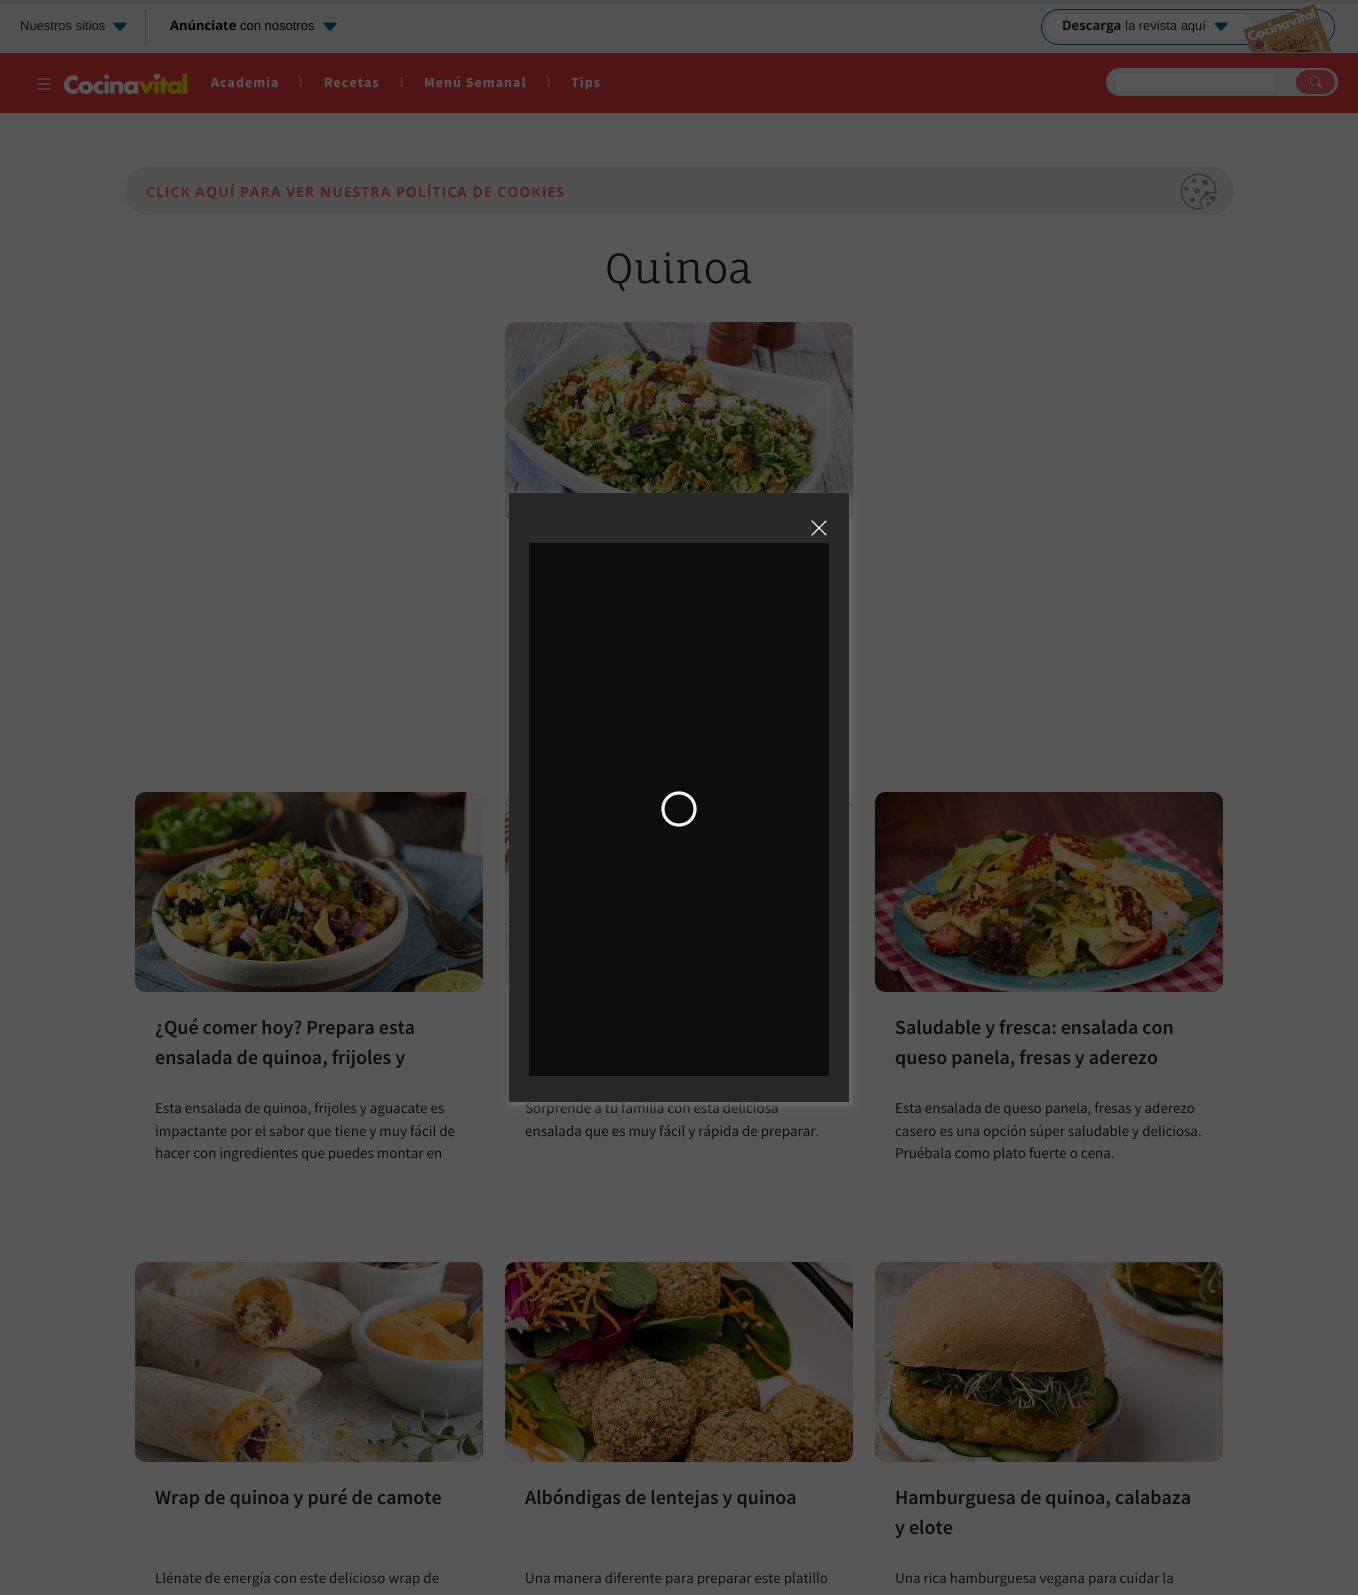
#include <cairo.h>
#include <math.h>
#include <stddef.h>


static void rgb(cairo_t *cr, int r, int g, int b)
{
	cairo_set_source_rgb(cr, r / 255.0, g / 255.0, b / 255.0);
}

static void face(cairo_t *cr, const char *family, double size, int italic, int bold)
{
	cairo_select_font_face(cr, family, italic ? CAIRO_FONT_SLANT_ITALIC : CAIRO_FONT_SLANT_NORMAL,
		bold ? CAIRO_FONT_WEIGHT_BOLD : CAIRO_FONT_WEIGHT_NORMAL);
	cairo_set_font_size(cr, size);
}

static void label(cairo_t *cr, double x, double y, const char *s)
{
	cairo_move_to(cr, x, y);
	cairo_show_text(cr, s);
}

static void tracked(cairo_t *cr, double x, double y, const char *s, double letter, double word)
{
	cairo_move_to(cr, x, y);
	while (*s) {
		char ch[5] = {0};
		int n = 0;
		do ch[n++] = *s++; while ((*s & 0xC0) == 0x80);
		cairo_show_text(cr, ch);
		cairo_rel_move_to(cr, letter + word * (*ch == ' '), 0);
	}
}

static void rect(cairo_t *cr, double x, double y, double w, double h)
{
	cairo_rectangle(cr, x, y, w, h);
	cairo_fill(cr);
}

static void rrect(cairo_t *cr, double x, double y, double w, double h, double r)
{
	cairo_new_sub_path(cr);
	cairo_arc(cr, x + w - r, y + h - r, r, 0, M_PI / 2);
	cairo_arc(cr, x + r, y + h - r, r, M_PI / 2, M_PI);
	cairo_arc(cr, x + r, y + r, r, M_PI, 1.5 * M_PI);
	cairo_arc(cr, x + w - r, y + r, r, 1.5 * M_PI, 2 * M_PI);
	cairo_close_path(cr);
}

static void soft_shadow(cairo_t *cr, double x, double y, double w, double h, double r, double blur, double alpha)
{
	cairo_push_group_with_content(cr, CAIRO_CONTENT_ALPHA);
	cairo_set_operator(cr, CAIRO_OPERATOR_SOURCE);
	for (int i = 15; i >= -15 && fmin(w, h) + blur * i / 3 > 0; i -= 2) {
		double e = blur * i / 6;
		cairo_set_source_rgba(cr, 0, 0, 0, alpha * erfc((i - 1) / 8.5) / 2);
		rrect(cr, x - e, y - e, w + 2 * e, h + 2 * e, fmax(0, fmin(r + e + blur * .6, fmin(w, h) / 2 + e)));
		cairo_fill(cr);
	}
	cairo_pattern_t *soft = cairo_pop_group(cr);
	cairo_mask(cr, soft);
	cairo_pattern_destroy(soft);
}

static void image(cairo_t *cr, const char *path, double x, double y, double w, double h)
{
	cairo_surface_t *image = cairo_image_surface_create_from_png(path);
	cairo_save(cr);
	cairo_set_source_surface(cr, image, x, y);
	cairo_rectangle(cr, x, y, w, h);
	cairo_fill(cr);
	cairo_restore(cr);
	cairo_surface_destroy(image);
}

static void draw(cairo_t *cr) {
	rgb(cr, 87, 87, 87);
	cairo_paint(cr);
	rgb(cr, 75, 75, 75);
	rect(cr, 0, 0, 1358, 3);
	rgb(cr, 82, 82, 82);
	rect(cr, 0, 3, 1358, 50);
	rgb(cr, 58, 58, 59);
	rect(cr, 145, 9, 1, 36);
	face(cr, "Liberation Sans", 13, 0, 0);
	rgb(cr, 12, 13, 13);
	label(cr, 20, 30, "Nuestros sitios");
	image(cr, "image0.png", 113, 22, 14, 9);
	face(cr, "Open Sans", 13, 0, 1);
	rgb(cr, 0, 0, 0);
	label(cr, 170, 30, "Anúnciate");
	face(cr, "Liberation Sans", 13, 0, 0);
	label(cr, 240, 30, "con nosotros");
	image(cr, "image0.png", 323, 22, 14, 9);
	rrect(cr, 1041.5, 9.5, 293, 35, 17.5);
	rgb(cr, 0, 37, 48);
	cairo_set_line_width(cr, 1);
	cairo_stroke(cr);
	rgb(cr, 87, 87, 87);
	rrect(cr, 1046, 14, 206, 26, 13);
	cairo_fill(cr);
	face(cr, "Open Sans", 13, 0, 1);
	rgb(cr, 12, 13, 13);
	label(cr, 1062, 30, "Descarga");
	face(cr, "Liberation Sans", 13, 0, 0);
	label(cr, 1125, 30, "la revista aquí");
	image(cr, "image1.png", 1214, 22, 14, 9);
	image(cr, "image2.png", 1243, 4, 89, 48);
	rgb(cr, 82, 21, 22);
	rect(cr, 0, 53, 1358, 60);
	image(cr, "image3.png", 37, 78, 14, 12);
	image(cr, "image4.png", 64, 74, 123, 20);
	face(cr, "Source Sans Pro", 14, 0, 1);
	rgb(cr, 87, 87, 87);
	tracked(cr, 211, 87, "Academia", 1, 0);
	face(cr, "Source Sans Pro", 14, 0, 0);
	rgb(cr, 81, 77, 17);
	tracked(cr, 299, 87, "l", 1, 0);
	face(cr, "Source Sans Pro", 14, 0, 1);
	rgb(cr, 87, 87, 87);
	tracked(cr, 324, 87, "Recetas", 1, 0);
	face(cr, "Source Sans Pro", 14, 0, 0);
	rgb(cr, 81, 77, 17);
	tracked(cr, 400, 87, "l", 1, 0);
	face(cr, "Source Sans Pro", 14, 0, 1);
	rgb(cr, 87, 87, 87);
	tracked(cr, 424, 87, "Menú Semanal", 1, 0);
	face(cr, "Source Sans Pro", 14, 0, 0);
	rgb(cr, 81, 77, 17);
	tracked(cr, 547, 87, "l", 1, 0);
	face(cr, "Source Sans Pro", 14, 0, 1);
	rgb(cr, 87, 87, 87);
	tracked(cr, 571, 87, "Tips", 1, 0);
	rgb(cr, 82, 82, 82);
	rrect(cr, 1106, 68, 232, 28, 14);
	cairo_fill(cr);
	rgb(cr, 87, 87, 87);
	rect(cr, 1116, 73, 158, 18);
	rgb(cr, 82, 34, 34);
	rrect(cr, 1296, 70, 39, 24, 12);
	cairo_fill(cr);
	image(cr, "image5.png", 1310, 76, 12, 12);
	rgb(cr, 81, 81, 81);
	rrect(cr, 124, 167, 1110, 48, 24);
	cairo_fill(cr);
	face(cr, "Open Sans", 14, 0, 1);
	rgb(cr, 82, 34, 34);
	tracked(cr, 146, 197, "CLICK AQUÍ PARA VER NUESTRA POLÍTICA DE COOKIES", 1, 0);
	image(cr, "image6.png", 1180, 173, 37, 37);
	face(cr, "Fauna One", 40, 0, 0);
	rgb(cr, 12, 13, 13);
	label(cr, 605, 283, "Quinoa");
	image(cr, "image7.png", 505, 322, 348, 198);
	image(cr, "image8.png", 135, 792, 348, 200);
	face(cr, "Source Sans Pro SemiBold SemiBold", 20, 0, 0);
	label(cr, 155, 1034, "¿Qué comer hoy? Prepara esta");
	label(cr, 155, 1064, "ensalada de quinoa, frijoles y");
	face(cr, "Source Sans Pro", 15, 0, 0);
	label(cr, 155, 1113, "Esta ensalada de quinoa, frijoles y aguacate es");
	label(cr, 155, 1136, "impactante por el sabor que tiene y muy fácil de");
	label(cr, 155, 1158, "hacer con ingredientes que puedes montar en");
	image(cr, "image9.png", 505, 794, 348, 196);
	label(cr, 525, 1113, "Sorprende a tu familia con esta deliciosa");
	label(cr, 525, 1136, "ensalada que es muy fácil y rápida de preparar.");
	image(cr, "image10.png", 875, 792, 348, 200);
	face(cr, "Source Sans Pro SemiBold SemiBold", 20, 0, 0);
	label(cr, 895, 1034, "Saludable y fresca: ensalada con");
	label(cr, 895, 1064, "queso panela, fresas y aderezo");
	face(cr, "Source Sans Pro", 15, 0, 0);
	label(cr, 895, 1113, "Esta ensalada de queso panela, fresas y aderezo");
	label(cr, 895, 1136, "casero es una opción súper saludable y deliciosa.");
	label(cr, 895, 1158, "Pruébala como plato fuerte o cena.");
	image(cr, "image11.png", 135, 1262, 348, 200);
	face(cr, "Source Sans Pro SemiBold SemiBold", 20, 0, 0);
	label(cr, 155, 1504, "Wrap de quinoa y puré de camote");
	face(cr, "Source Sans Pro", 15, 0, 0);
	label(cr, 155, 1583, "Llénate de energía con este delicioso wrap de");
	image(cr, "image12.png", 505, 1262, 348, 200);
	face(cr, "Source Sans Pro SemiBold SemiBold", 20, 0, 0);
	label(cr, 525, 1504, "Albóndigas de lentejas y quinoa");
	face(cr, "Source Sans Pro", 15, 0, 0);
	label(cr, 525, 1583, "Una manera diferente para preparar este platillo");
	image(cr, "image13.png", 875, 1262, 348, 200);
	face(cr, "Source Sans Pro SemiBold SemiBold", 20, 0, 0);
	label(cr, 895, 1504, "Hamburguesa de quinoa, calabaza");
	label(cr, 895, 1534, "y elote");
	face(cr, "Source Sans Pro", 15, 0, 0);
	label(cr, 895, 1583, "Una rica hamburguesa vegana para cuidar la");
	rgb(cr, 113, 113, 113);
	soft_shadow(cr, 511, 496, 340, 609, 0, 4, 1);
	rgb(cr, 40, 40, 40);
	rect(cr, 509, 493, 340, 609);
	image(cr, "image14.png", 811, 520, 16, 16);
	rgb(cr, 13, 13, 13);
	rect(cr, 529, 543, 300, 533);
	cairo_new_path(cr);
	cairo_move_to(cr, 663, 809);
	cairo_curve_to(cr, 663, 800, 670, 793, 679, 793);
	cairo_curve_to(cr, 688, 793, 695, 800, 695, 809);
	cairo_curve_to(cr, 695, 818, 688, 825, 679, 825);
	cairo_curve_to(cr, 670, 825, 663, 818, 663, 809);
	rgb(cr, 255, 255, 255);
	cairo_set_line_width(cr, 3.2);
	cairo_stroke(cr);
}

int main(void) {
	cairo_surface_t *surface = cairo_image_surface_create(CAIRO_FORMAT_RGB24, 1358, 1595);
	cairo_t *cr = cairo_create(surface);
	cairo_font_options_t *options = cairo_font_options_create();
	cairo_font_options_set_hint_metrics(options, CAIRO_HINT_METRICS_OFF);
	cairo_font_options_set_hint_style(options, CAIRO_HINT_STYLE_NONE);
	cairo_set_font_options(cr, options);
	cairo_set_miter_limit(cr, 4);
	draw(cr);
	cairo_surface_write_to_png(surface, "render.png");
	cairo_font_options_destroy(options);
	cairo_destroy(cr);
	cairo_surface_destroy(surface);
	return 0;
}
